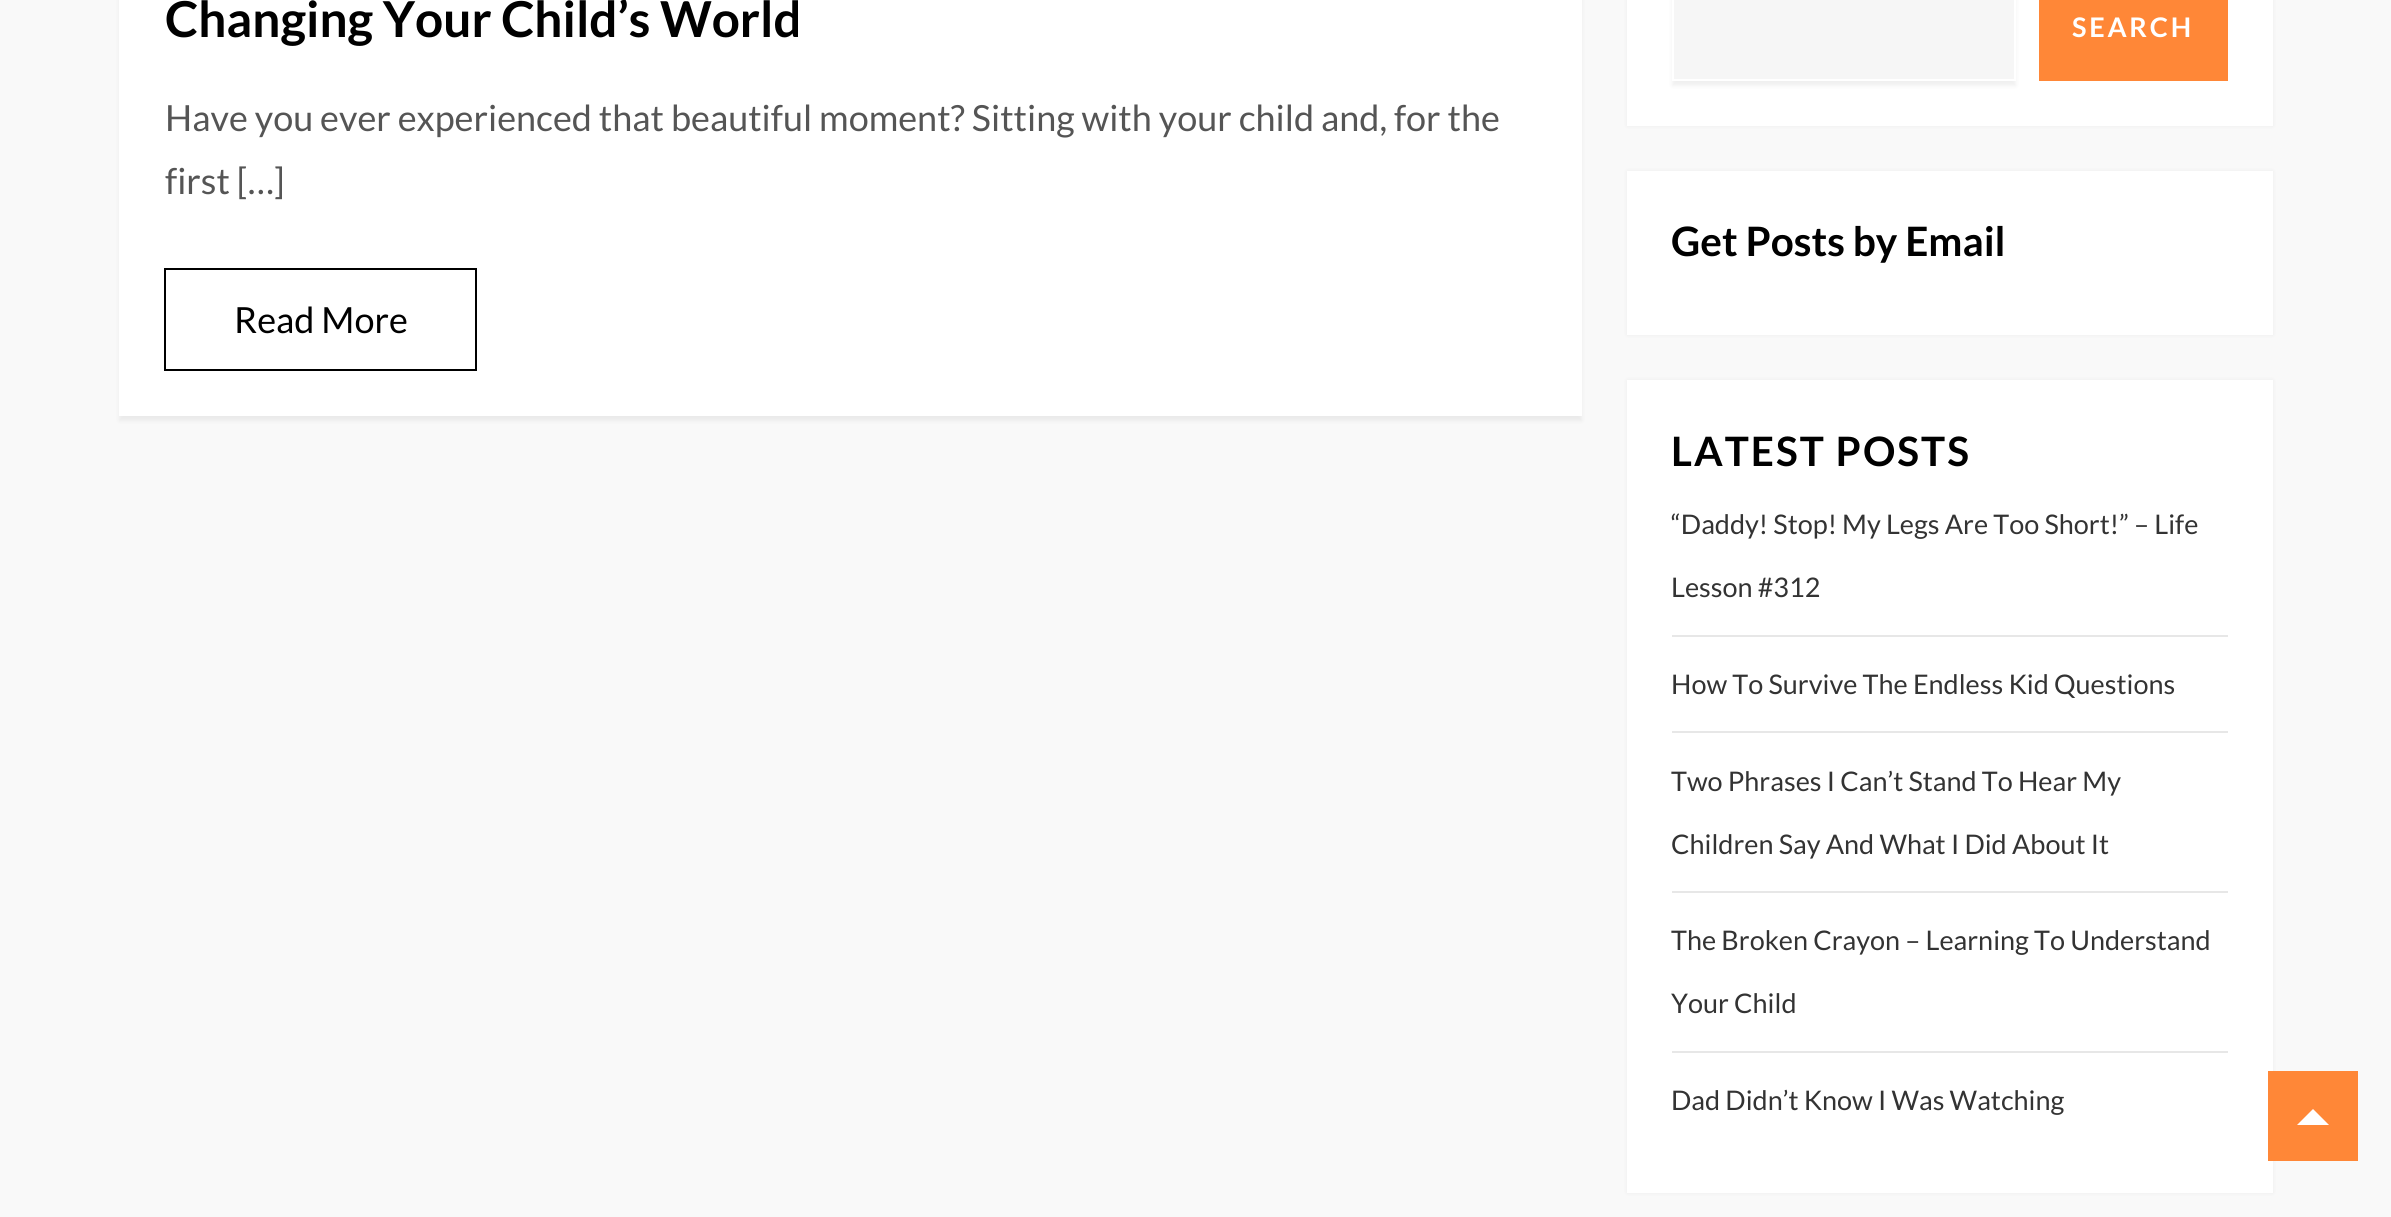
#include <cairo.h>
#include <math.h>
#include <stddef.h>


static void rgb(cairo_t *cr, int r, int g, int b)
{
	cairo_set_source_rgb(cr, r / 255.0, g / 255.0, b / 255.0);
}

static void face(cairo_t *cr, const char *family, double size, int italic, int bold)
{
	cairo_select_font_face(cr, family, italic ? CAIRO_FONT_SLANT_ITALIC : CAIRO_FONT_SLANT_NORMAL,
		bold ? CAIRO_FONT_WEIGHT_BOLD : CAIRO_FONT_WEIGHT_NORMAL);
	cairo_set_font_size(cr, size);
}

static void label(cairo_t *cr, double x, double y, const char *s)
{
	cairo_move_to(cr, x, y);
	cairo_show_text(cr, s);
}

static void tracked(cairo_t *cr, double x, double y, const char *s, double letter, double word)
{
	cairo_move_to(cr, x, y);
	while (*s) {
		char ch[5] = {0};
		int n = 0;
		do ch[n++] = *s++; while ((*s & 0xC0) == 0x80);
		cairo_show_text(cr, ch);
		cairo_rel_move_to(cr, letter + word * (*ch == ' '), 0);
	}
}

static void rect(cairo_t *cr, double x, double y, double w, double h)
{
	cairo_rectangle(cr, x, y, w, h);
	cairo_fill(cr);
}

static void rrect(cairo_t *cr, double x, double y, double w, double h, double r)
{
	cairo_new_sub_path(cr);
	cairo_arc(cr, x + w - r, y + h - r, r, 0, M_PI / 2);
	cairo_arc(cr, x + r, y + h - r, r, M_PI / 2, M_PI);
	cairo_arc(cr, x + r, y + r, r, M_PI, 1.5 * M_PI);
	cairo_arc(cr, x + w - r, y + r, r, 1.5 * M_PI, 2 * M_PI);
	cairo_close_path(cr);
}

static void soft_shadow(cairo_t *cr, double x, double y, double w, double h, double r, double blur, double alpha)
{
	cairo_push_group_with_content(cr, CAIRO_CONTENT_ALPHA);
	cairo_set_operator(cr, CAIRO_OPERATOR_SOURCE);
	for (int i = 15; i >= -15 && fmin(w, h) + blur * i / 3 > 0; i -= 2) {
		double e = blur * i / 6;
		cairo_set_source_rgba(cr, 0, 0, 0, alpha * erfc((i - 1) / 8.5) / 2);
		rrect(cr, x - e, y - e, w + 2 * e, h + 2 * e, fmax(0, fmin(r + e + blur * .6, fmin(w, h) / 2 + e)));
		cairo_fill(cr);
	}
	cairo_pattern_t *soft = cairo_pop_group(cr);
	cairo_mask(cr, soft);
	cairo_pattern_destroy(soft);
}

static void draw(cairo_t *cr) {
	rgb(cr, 249, 249, 249);
	cairo_paint(cr);
	rgb(cr, 0, 0, 0);
	soft_shadow(cr, 119, -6, 1463, 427, 0, 2, 0.06);
	rgb(cr, 255, 255, 255);
	rect(cr, 119, 0, 1463, 416);
	face(cr, "Lato", 49.5, 0, 1);
	rgb(cr, 0, 0, 0);
	label(cr, 165, 37, "Changing Your Child’s World");
	face(cr, "Lato", 36, 0, 0);
	rgb(cr, 85, 85, 85);
	label(cr, 165, 131, "Have you ever experienced that beautiful moment? Sitting with your child and, for the");
	label(cr, 165, 194, "first […]");
	cairo_rectangle(cr, 165, 269, 311, 101);
	rgb(cr, 0, 0, 0);
	cairo_stroke(cr);
	label(cr, 234, 333, "Read More");
	rgb(cr, 0, 0, 0);
	soft_shadow(cr, 1627, -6, 646, 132, 0, 2, 0.06);
	rgb(cr, 255, 255, 255);
	rect(cr, 1627, 0, 646, 126);
	rgb(cr, 0, 0, 0);
	soft_shadow(cr, 1672, -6, 344, 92, 0, 2, 0.06);
	rgb(cr, 246, 246, 246);
	cairo_rectangle(cr, 1673, -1, 342, 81);
	cairo_fill_preserve(cr);
	rgb(cr, 255, 255, 255);
	cairo_stroke(cr);
	rgb(cr, 255, 135, 55);
	rect(cr, 2039, 0, 189, 81);
	face(cr, "Lato", 27, 0, 1);
	rgb(cr, 255, 255, 255);
	tracked(cr, 2072, 37, "SEARCH", 2.75, 0);
	rgb(cr, 0, 0, 0);
	soft_shadow(cr, 1627, 171, 646, 164, 0, 2, 0.06);
	rgb(cr, 255, 255, 255);
	rect(cr, 1627, 171, 646, 164);
	face(cr, "Lato", 40.5, 0, 1);
	rgb(cr, 0, 0, 0);
	label(cr, 1671, 256, "Get Posts by Email");
	rgb(cr, 0, 0, 0);
	soft_shadow(cr, 1627, 380, 646, 813, 0, 2, 0.06);
	rgb(cr, 255, 255, 255);
	rect(cr, 1627, 380, 646, 813);
	rgb(cr, 0, 0, 0);
	tracked(cr, 1671, 466, "LATEST POSTS", 2, 0);
	rgb(cr, 231, 231, 231);
	rect(cr, 1672, 635, 556, 2);
	face(cr, "Lato", 27, 0, 0);
	rgb(cr, 51, 51, 51);
	label(cr, 1671, 534, "“Daddy! Stop! My Legs Are Too Short!” – Life");
	label(cr, 1671, 597, "Lesson #312");
	rgb(cr, 231, 231, 231);
	rect(cr, 1672, 731, 556, 2);
	rgb(cr, 51, 51, 51);
	label(cr, 1671, 694, "How To Survive The Endless Kid Questions");
	rgb(cr, 231, 231, 231);
	rect(cr, 1672, 891, 556, 2);
	rgb(cr, 51, 51, 51);
	label(cr, 1671, 791, "Two Phrases I Can’t Stand To Hear My");
	label(cr, 1671, 854, "Children Say And What I Did About It");
	rgb(cr, 231, 231, 231);
	rect(cr, 1672, 1051, 556, 2);
	rgb(cr, 51, 51, 51);
	label(cr, 1671, 950, "The Broken Crayon – Learning To Understand");
	label(cr, 1671, 1013, "Your Child");
	label(cr, 1671, 1110, "Dad Didn’t Know I Was Watching");
	rgb(cr, 255, 135, 55);
	rect(cr, 2268, 1071, 90, 90);
	rgb(cr, 255, 255, 255);
	cairo_new_path(cr);
	cairo_move_to(cr, 2329, 1125);
	cairo_line_to(cr, 2297, 1125);
	cairo_line_to(cr, 2313, 1109);
	cairo_close_path(cr);
	cairo_fill(cr);
}

int main(void) {
	cairo_surface_t *surface = cairo_image_surface_create(CAIRO_FORMAT_RGB24, 2391, 1217);
	cairo_t *cr = cairo_create(surface);
	cairo_font_options_t *options = cairo_font_options_create();
	cairo_font_options_set_hint_metrics(options, CAIRO_HINT_METRICS_OFF);
	cairo_font_options_set_hint_style(options, CAIRO_HINT_STYLE_NONE);
	cairo_set_font_options(cr, options);
	cairo_set_miter_limit(cr, 4);
	draw(cr);
	cairo_surface_write_to_png(surface, "render.png");
	cairo_font_options_destroy(options);
	cairo_destroy(cr);
	cairo_surface_destroy(surface);
	return 0;
}
